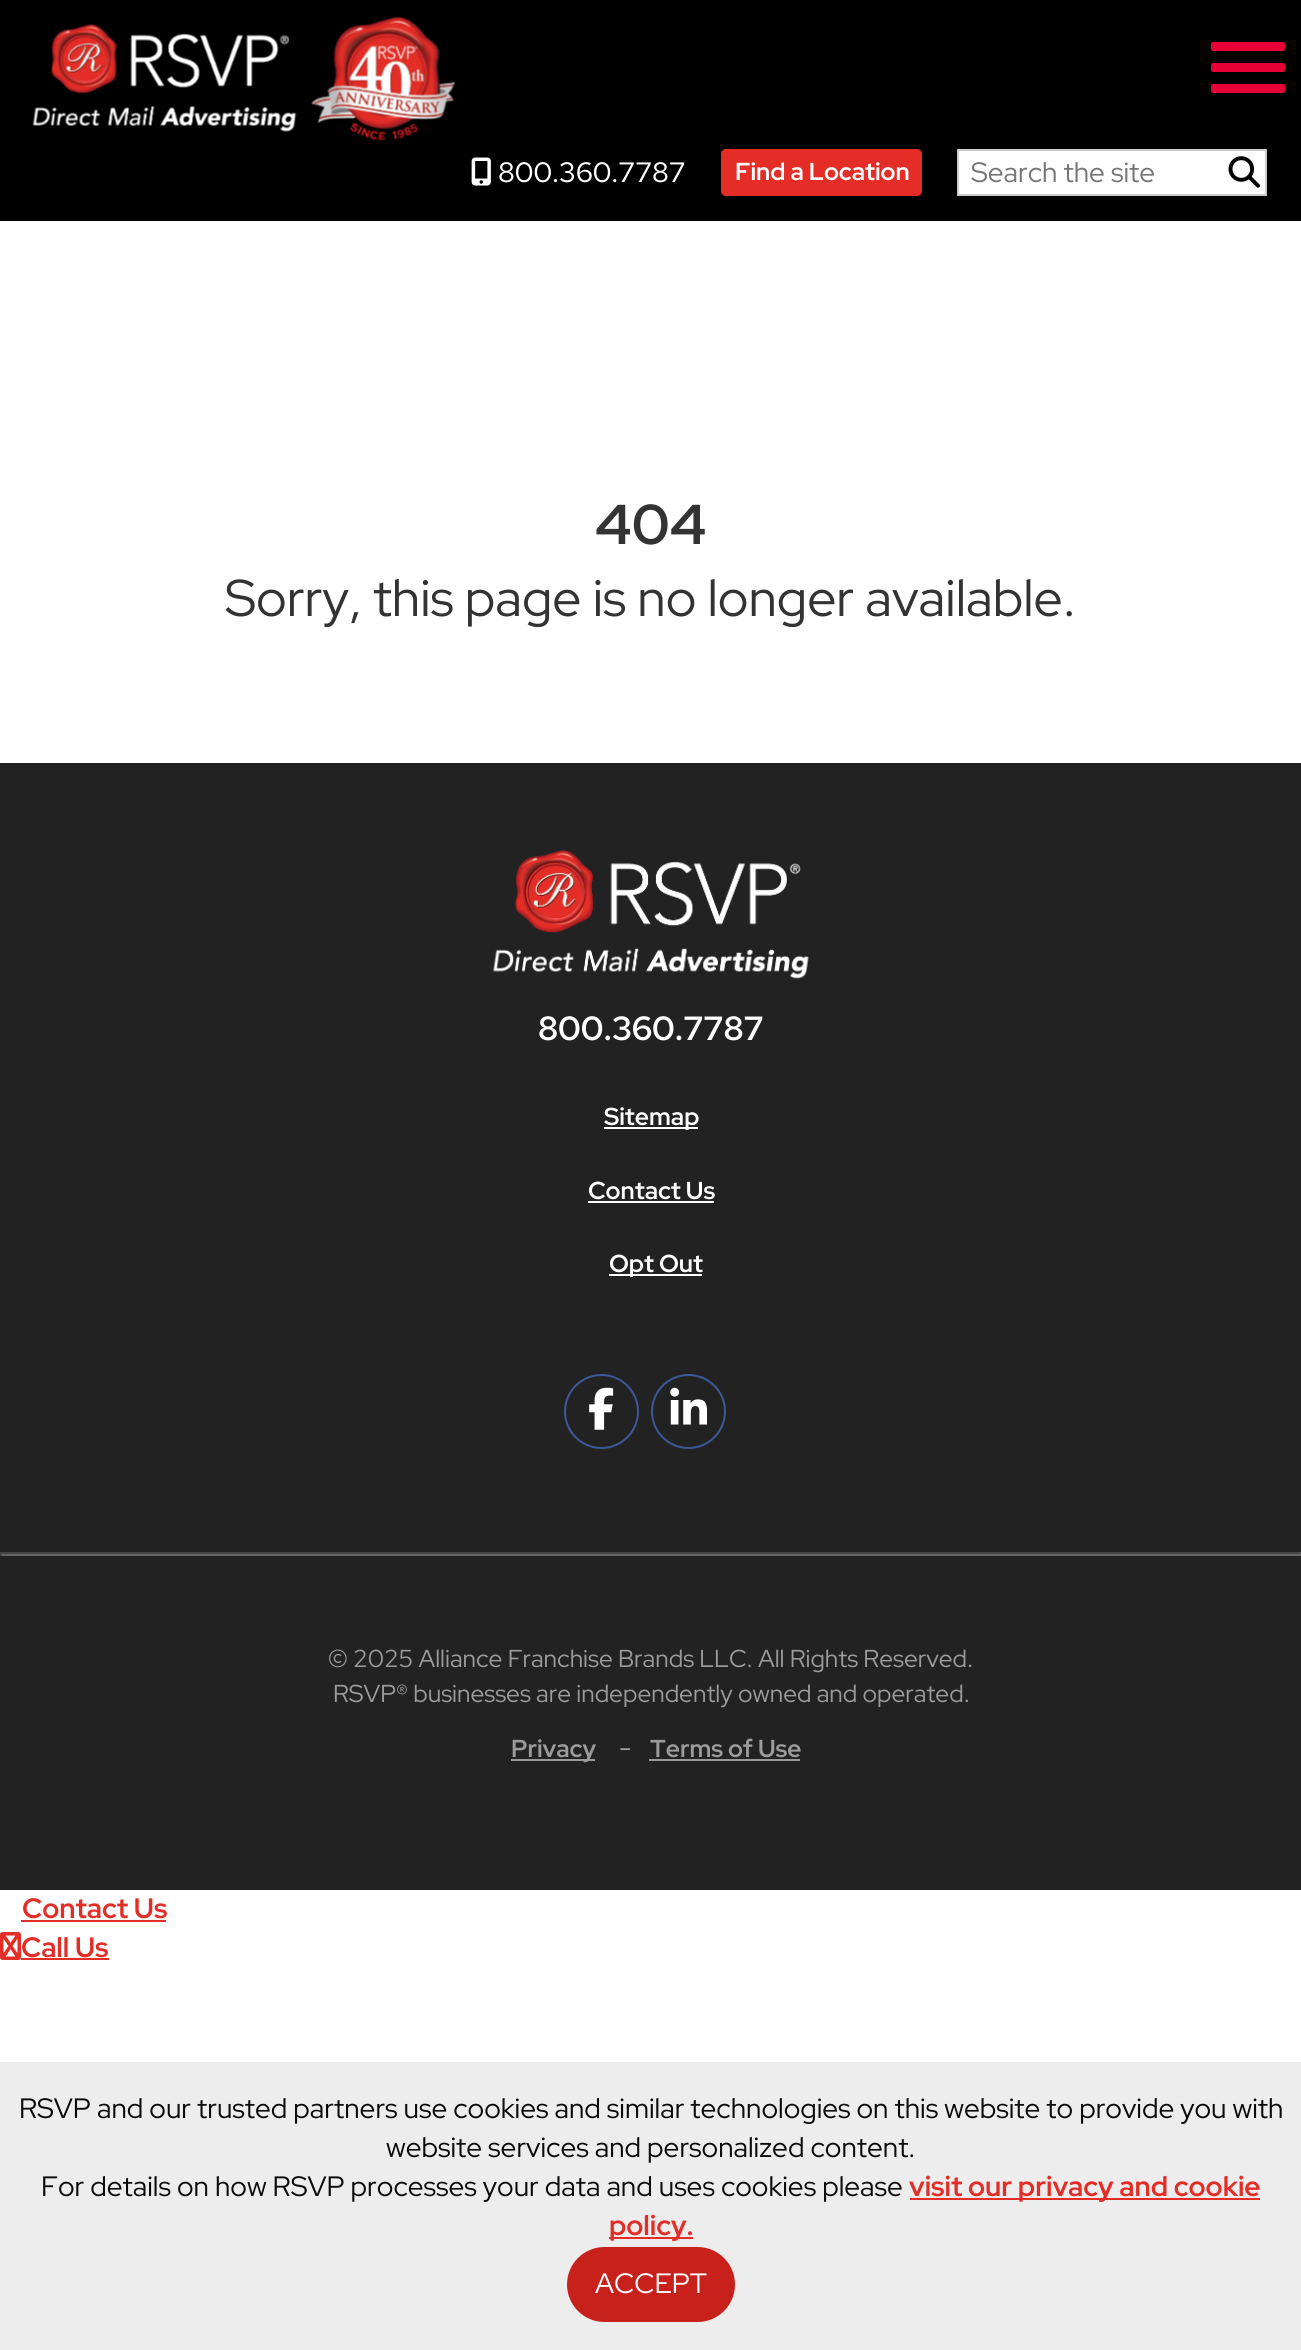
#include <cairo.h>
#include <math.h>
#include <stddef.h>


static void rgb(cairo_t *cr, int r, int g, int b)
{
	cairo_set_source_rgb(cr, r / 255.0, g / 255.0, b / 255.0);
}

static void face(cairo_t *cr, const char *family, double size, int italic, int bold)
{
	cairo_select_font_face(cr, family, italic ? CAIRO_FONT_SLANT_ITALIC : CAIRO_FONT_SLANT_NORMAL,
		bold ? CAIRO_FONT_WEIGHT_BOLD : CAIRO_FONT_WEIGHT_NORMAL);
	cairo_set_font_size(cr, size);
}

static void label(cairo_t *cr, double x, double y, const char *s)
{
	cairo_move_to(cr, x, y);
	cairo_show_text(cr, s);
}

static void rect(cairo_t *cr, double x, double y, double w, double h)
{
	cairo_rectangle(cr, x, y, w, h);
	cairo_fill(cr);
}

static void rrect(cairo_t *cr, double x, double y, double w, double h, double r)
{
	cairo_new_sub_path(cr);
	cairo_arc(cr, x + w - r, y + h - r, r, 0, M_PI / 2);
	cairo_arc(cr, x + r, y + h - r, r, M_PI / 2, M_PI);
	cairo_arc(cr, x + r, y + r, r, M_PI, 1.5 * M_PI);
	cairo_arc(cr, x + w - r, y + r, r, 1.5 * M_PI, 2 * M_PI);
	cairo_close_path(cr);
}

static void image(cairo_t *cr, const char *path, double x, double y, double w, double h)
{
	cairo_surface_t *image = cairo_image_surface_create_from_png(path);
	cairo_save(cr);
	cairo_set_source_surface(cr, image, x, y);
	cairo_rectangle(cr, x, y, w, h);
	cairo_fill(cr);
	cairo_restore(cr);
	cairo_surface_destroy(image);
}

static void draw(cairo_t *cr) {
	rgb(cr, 255, 255, 255);
	cairo_paint(cr);
	rgb(cr, 0, 0, 0);
	rect(cr, 0, 142, 1301, 79);
	rect(cr, 0, 0, 1301, 142);
	image(cr, "image0.png", 32, 24, 265, 108);
	image(cr, "image1.png", 311, 17, 144, 123);
	rgb(cr, 231, 0, 51);
	rrect(cr, 1211, 42, 74, 9, 2);
	cairo_fill(cr);
	rrect(cr, 1211, 63, 74, 9, 2);
	cairo_fill(cr);
	rrect(cr, 1211, 84, 74, 9, 2);
	cairo_fill(cr);
	image(cr, "image2.png", 471, 157, 20, 29);
	face(cr, "Red Hat Display Medium", 28, 0, 0);
	rgb(cr, 255, 255, 255);
	label(cr, 498, 182, "800.360.7787");
	rgb(cr, 227, 45, 38);
	rrect(cr, 721, 149, 201, 47, 5);
	cairo_fill(cr);
	face(cr, "Red Hat Display", 24.5, 0, 1);
	rgb(cr, 255, 255, 255);
	label(cr, 735, 180, "Find a Location");
	cairo_rectangle(cr, 958, 150, 308, 45);
	rgb(cr, 204, 204, 204);
	cairo_stroke(cr);
	rgb(cr, 255, 255, 255);
	rect(cr, 959, 151, 306, 43);
	face(cr, "Red Hat Display", 28, 0, 0);
	rgb(cr, 117, 117, 117);
	label(cr, 971, 182, "Search the site");
	image(cr, "image3.png", 1228, 156, 32, 32);
	face(cr, "Red Hat Display", 56, 0, 1);
	rgb(cr, 51, 51, 51);
	label(cr, 595, 544, "404");
	face(cr, "Red Hat Display", 51.75, 0, 0);
	label(cr, 225, 616, "Sorry, this page is no longer available.");
	rgb(cr, 34, 34, 34);
	rect(cr, 0, 763, 1301, 1127);
	image(cr, "image4.png", 493, 850, 316, 129);
	face(cr, "Red Hat Display", 33.5, 0, 1);
	rgb(cr, 255, 255, 255);
	label(cr, 538, 1040, "800.360.7787");
	rect(cr, 604, 1127, 94, 2);
	face(cr, "Red Hat Display", 24.5, 0, 1);
	label(cr, 604, 1125, "Sitemap");
	label(cr, 588, 1199, "Contact Us");
	rect(cr, 588, 1201, 126, 2);
	rect(cr, 609, 1274, 93, 2);
	label(cr, 609, 1272, "Opt Out");
	cairo_new_path(cr);
	cairo_arc(cr, 601.5, 1411.5, 36.5, 0, 2 * M_PI);
	rgb(cr, 59, 89, 152);
	cairo_stroke(cr);
	image(cr, "image5.png", 589, 1387, 25, 43);
	cairo_arc(cr, 688.5, 1411.5, 36.5, 0, 2 * M_PI);
	cairo_stroke(cr);
	image(cr, "image6.png", 670, 1387, 37, 38);
	rgb(cr, 68, 68, 68);
	rect(cr, 0, 1552, 1301, 2);
	rgb(cr, 102, 102, 102);
	rect(cr, 1300, 1552, 1, 4);
	rect(cr, 0, 1554, 1301, 2);
	rgb(cr, 68, 68, 68);
	rect(cr, 0, 1552, 2, 4);
	face(cr, "Red Hat Display", 24.5, 0, 0);
	rgb(cr, 155, 155, 155);
	label(cr, 328, 1667, "© 2025 Alliance Franchise Brands LLC. All Rights Reserved.");
	label(cr, 333, 1702, "RSVP® businesses are independently owned and operated.");
	rect(cr, 511, 1759, 84, 2);
	face(cr, "Red Hat Display", 24.5, 0, 1);
	label(cr, 511, 1757, "Privacy");
	face(cr, "Red Hat Display", 28, 0, 0);
	label(cr, 619, 1757, "-");
	face(cr, "Red Hat Display", 24.5, 0, 1);
	label(cr, 650, 1757, "Terms of Use");
	rect(cr, 649, 1759, 151, 2);
	face(cr, "Red Hat Display", 28, 0, 1);
	rgb(cr, 227, 45, 38);
	label(cr, 22, 1918, "Contact Us");
	rect(cr, 21, 1920, 145, 2);
	image(cr, "image7.png", 0, 1932, 21, 28);
	label(cr, 21, 1957, "Call Us");
	rect(cr, 21, 1958, 88, 2);
	rgb(cr, 237, 237, 237);
	rect(cr, 0, 2062, 1301, 288);
	face(cr, "Red Hat Display", 28, 0, 0);
	rgb(cr, 10, 10, 10);
	label(cr, 19, 2118, "RSVP and our trusted partners use cookies and similar technologies on this website to provide you with");
	label(cr, 386, 2157, "website services and personalized content.");
	label(cr, 41, 2196, "For details on how RSVP processes your data and uses cookies please");
	rgb(cr, 227, 45, 38);
	rect(cr, 910, 2198, 350, 2);
	face(cr, "Red Hat Display", 28, 0, 1);
	label(cr, 909, 2196, "visit our privacy and cookie");
	rect(cr, 609, 2237, 84, 2);
	label(cr, 609, 2235, "policy.");
	rgb(cr, 200, 32, 26);
	rrect(cr, 567, 2247, 168, 75, 37.5);
	cairo_fill(cr);
	face(cr, "Red Hat Display", 28, 0, 0);
	rgb(cr, 255, 255, 255);
	label(cr, 595, 2293, "ACCEPT");
}

int main(void) {
	cairo_surface_t *surface = cairo_image_surface_create(CAIRO_FORMAT_RGB24, 1301, 2350);
	cairo_t *cr = cairo_create(surface);
	cairo_font_options_t *options = cairo_font_options_create();
	cairo_font_options_set_hint_metrics(options, CAIRO_HINT_METRICS_OFF);
	cairo_font_options_set_hint_style(options, CAIRO_HINT_STYLE_NONE);
	cairo_set_font_options(cr, options);
	cairo_set_miter_limit(cr, 4);
	draw(cr);
	cairo_surface_write_to_png(surface, "render.png");
	cairo_font_options_destroy(options);
	cairo_destroy(cr);
	cairo_surface_destroy(surface);
	return 0;
}
